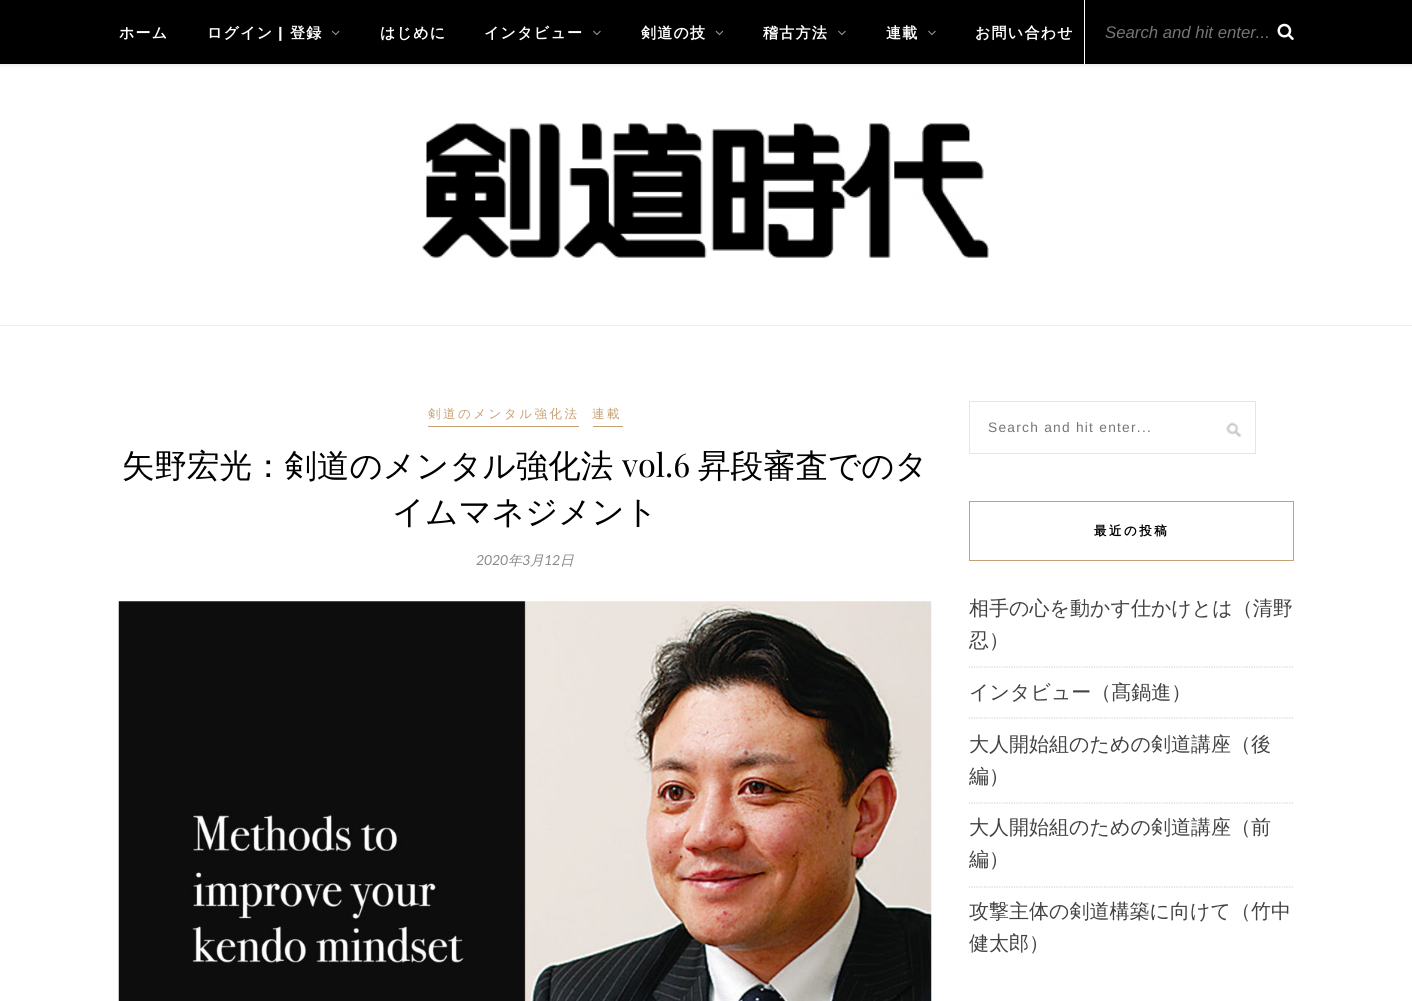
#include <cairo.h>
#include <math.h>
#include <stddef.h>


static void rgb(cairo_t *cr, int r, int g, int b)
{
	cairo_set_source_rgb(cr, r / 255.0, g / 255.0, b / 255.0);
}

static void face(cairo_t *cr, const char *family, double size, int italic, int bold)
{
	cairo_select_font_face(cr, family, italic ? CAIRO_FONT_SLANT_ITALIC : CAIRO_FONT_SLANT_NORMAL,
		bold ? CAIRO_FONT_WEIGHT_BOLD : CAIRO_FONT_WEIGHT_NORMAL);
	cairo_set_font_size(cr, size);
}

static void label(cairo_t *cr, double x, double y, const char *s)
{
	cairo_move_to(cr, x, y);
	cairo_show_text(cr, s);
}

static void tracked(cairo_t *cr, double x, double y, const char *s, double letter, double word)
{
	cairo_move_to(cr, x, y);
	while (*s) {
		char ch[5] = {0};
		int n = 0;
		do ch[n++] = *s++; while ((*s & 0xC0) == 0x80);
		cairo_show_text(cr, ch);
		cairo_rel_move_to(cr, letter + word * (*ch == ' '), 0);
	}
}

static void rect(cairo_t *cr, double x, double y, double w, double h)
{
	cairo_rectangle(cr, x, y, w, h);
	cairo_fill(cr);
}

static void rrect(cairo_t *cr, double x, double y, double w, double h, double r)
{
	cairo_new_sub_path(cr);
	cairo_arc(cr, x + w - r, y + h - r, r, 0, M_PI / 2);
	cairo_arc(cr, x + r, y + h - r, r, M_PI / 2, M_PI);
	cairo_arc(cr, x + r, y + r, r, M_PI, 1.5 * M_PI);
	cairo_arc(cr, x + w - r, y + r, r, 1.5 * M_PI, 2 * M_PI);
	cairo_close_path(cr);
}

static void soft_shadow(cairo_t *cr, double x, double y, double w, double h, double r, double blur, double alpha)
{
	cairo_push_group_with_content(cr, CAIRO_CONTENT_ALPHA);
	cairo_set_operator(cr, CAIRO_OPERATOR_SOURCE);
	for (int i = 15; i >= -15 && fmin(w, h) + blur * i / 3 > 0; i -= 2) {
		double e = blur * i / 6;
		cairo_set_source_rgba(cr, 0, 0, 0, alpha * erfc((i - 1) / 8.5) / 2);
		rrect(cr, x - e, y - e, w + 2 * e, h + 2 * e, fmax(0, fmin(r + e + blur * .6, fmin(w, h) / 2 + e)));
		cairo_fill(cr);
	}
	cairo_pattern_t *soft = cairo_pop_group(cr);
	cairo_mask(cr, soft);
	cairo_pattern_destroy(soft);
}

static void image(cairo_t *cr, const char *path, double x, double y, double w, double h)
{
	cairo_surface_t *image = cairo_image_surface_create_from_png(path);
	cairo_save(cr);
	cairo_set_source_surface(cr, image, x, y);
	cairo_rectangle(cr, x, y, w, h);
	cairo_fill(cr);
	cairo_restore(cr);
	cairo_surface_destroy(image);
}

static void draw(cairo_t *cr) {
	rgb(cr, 255, 255, 255);
	cairo_paint(cr);
	rgb(cr, 190, 190, 190);
	soft_shadow(cr, 0, 1, 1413, 64, 0, 3, 0.46);
	rgb(cr, 0, 0, 0);
	rect(cr, 0, 0, 1412, 64);
	face(cr, "WenQuanYi Zen Hei", 15, 0, 1);
	rgb(cr, 255, 255, 255);
	tracked(cr, 119, 38, "ホーム", 1.25, 0);
	tracked(cr, 207, 38, "ログイン", 1.25, 0);
	face(cr, "Montserrat", 15, 0, 1);
	tracked(cr, 278, 38, "|", 1.25, 0);
	face(cr, "WenQuanYi Zen Hei", 15, 0, 1);
	tracked(cr, 290, 38, "登録", 1.25, 0);
	image(cr, "image0.png", 331, 30, 9, 6);
	tracked(cr, 380, 38, "はじめに", 1.25, 0);
	tracked(cr, 484, 38, "インタビュー", 1.25, 0);
	image(cr, "image1.png", 593, 30, 8, 6);
	tracked(cr, 641, 38, "剣道の技", 1.25, 0);
	image(cr, "image2.png", 715, 30, 9, 6);
	tracked(cr, 763, 38, "稽古方法", 1.25, 0);
	image(cr, "image1.png", 838, 30, 8, 6);
	tracked(cr, 886, 38, "連載", 1.25, 0);
	image(cr, "image1.png", 928, 30, 8, 6);
	tracked(cr, 975, 38, "お問い合わせ", 1.25, 0);
	rect(cr, 1084, 0, 1, 64);
	face(cr, "Liberation Sans", 16.75, 1, 0);
	rgb(cr, 117, 117, 117);
	label(cr, 1105, 38, "Search and hit enter...");
	image(cr, "image3.png", 1277, 23, 17, 17);
	rgb(cr, 238, 238, 238);
	rect(cr, 0, 325, 1412, 1);
	image(cr, "image4.png", 422, 123, 568, 135);
	rgb(cr, 198, 159, 115);
	rect(cr, 428, 426, 151, 1);
	face(cr, "WenQuanYi Zen Hei Medium", 12.5, 0, 0);
	tracked(cr, 428, 418, "剣道のメンタル強化法", 2.5, 0);
	rect(cr, 593, 426, 30, 1);
	tracked(cr, 592, 418, "連載", 2.5, 0);
	face(cr, "WenQuanYi Zen Hei Medium", 32.5, 0, 0);
	rgb(cr, 0, 0, 0);
	label(cr, 122, 477, "矢野宏光：剣道のメンタル強化法");
	face(cr, "Playfair Display", 32.5, 0, 0);
	label(cr, 622, 477, "vol.6");
	face(cr, "WenQuanYi Zen Hei Medium", 32.5, 0, 0);
	label(cr, 698, 477, "昇段審査でのタ");
	label(cr, 392, 523, "イムマネジメント");
	face(cr, "Lato", 13.75, 1, 0);
	rgb(cr, 136, 136, 136);
	label(cr, 476, 565, "2020");
	face(cr, "WenQuanYi Zen Hei Medium", 13.75, 1, 0);
	label(cr, 508, 565, "年");
	face(cr, "Lato", 13.75, 1, 0);
	label(cr, 522, 565, "3");
	face(cr, "WenQuanYi Zen Hei Medium", 13.75, 1, 0);
	label(cr, 530, 565, "月");
	face(cr, "Lato", 13.75, 1, 0);
	label(cr, 544, 565, "12");
	face(cr, "WenQuanYi Zen Hei Medium", 13.75, 1, 0);
	label(cr, 560, 565, "日");
	image(cr, "image5.png", 118, 601, 814, 400);
	image(cr, "image6.png", 1226, 422, 16, 16);
	cairo_rectangle(cr, 969.5, 401.5, 286, 52);
	rgb(cr, 229, 229, 229);
	cairo_set_line_width(cr, 1);
	cairo_stroke(cr);
	face(cr, "Liberation Sans", 13.75, 0, 0);
	rgb(cr, 117, 117, 117);
	tracked(cr, 988, 432, "Search and hit enter...", 1.25, 0);
	cairo_rectangle(cr, 969.5, 501.5, 324, 59);
	rgb(cr, 198, 159, 115);
	cairo_stroke(cr);
	face(cr, "WenQuanYi Zen Hei", 12.5, 0, 1);
	rgb(cr, 0, 0, 0);
	tracked(cr, 1094, 535, "最近の投稿", 2.5, 0);
	cairo_new_path(cr);
	cairo_move_to(cr, 969, 667);
	cairo_line_to(cr, 1294, 667);
	rgb(cr, 213, 213, 213);
	cairo_set_line_width(cr, 1.2);
	cairo_set_dash(cr, (double[]){1.25, 1.25}, 2, 0);
	cairo_stroke(cr);
	face(cr, "WenQuanYi Zen Hei Medium", 20, 0, 0);
	rgb(cr, 66, 66, 66);
	label(cr, 969, 615, "相手の心を動かす仕かけとは（清野");
	label(cr, 969, 647, "忍）");
	cairo_new_path(cr);
	cairo_move_to(cr, 969, 718);
	cairo_line_to(cr, 1294, 718);
	rgb(cr, 213, 213, 213);
	cairo_stroke(cr);
	rgb(cr, 66, 66, 66);
	label(cr, 969, 699, "インタビュー（髙鍋進）");
	cairo_new_path(cr);
	cairo_move_to(cr, 969, 803);
	cairo_line_to(cr, 1294, 803);
	rgb(cr, 213, 213, 213);
	cairo_stroke(cr);
	rgb(cr, 66, 66, 66);
	label(cr, 969, 751, "大人開始組のための剣道講座（後");
	label(cr, 969, 783, "編）");
	cairo_new_path(cr);
	cairo_move_to(cr, 969, 887);
	cairo_line_to(cr, 1294, 887);
	rgb(cr, 213, 213, 213);
	cairo_stroke(cr);
	rgb(cr, 66, 66, 66);
	label(cr, 969, 834, "大人開始組のための剣道講座（前");
	label(cr, 969, 866, "編）");
	label(cr, 969, 918, "攻撃主体の剣道構築に向けて（竹中");
	label(cr, 969, 950, "健太郎）");
}

int main(void) {
	cairo_surface_t *surface = cairo_image_surface_create(CAIRO_FORMAT_RGB24, 1412, 1001);
	cairo_t *cr = cairo_create(surface);
	cairo_font_options_t *options = cairo_font_options_create();
	cairo_font_options_set_hint_metrics(options, CAIRO_HINT_METRICS_OFF);
	cairo_font_options_set_hint_style(options, CAIRO_HINT_STYLE_NONE);
	cairo_set_font_options(cr, options);
	cairo_set_miter_limit(cr, 4);
	draw(cr);
	cairo_surface_write_to_png(surface, "render.png");
	cairo_font_options_destroy(options);
	cairo_destroy(cr);
	cairo_surface_destroy(surface);
	return 0;
}
